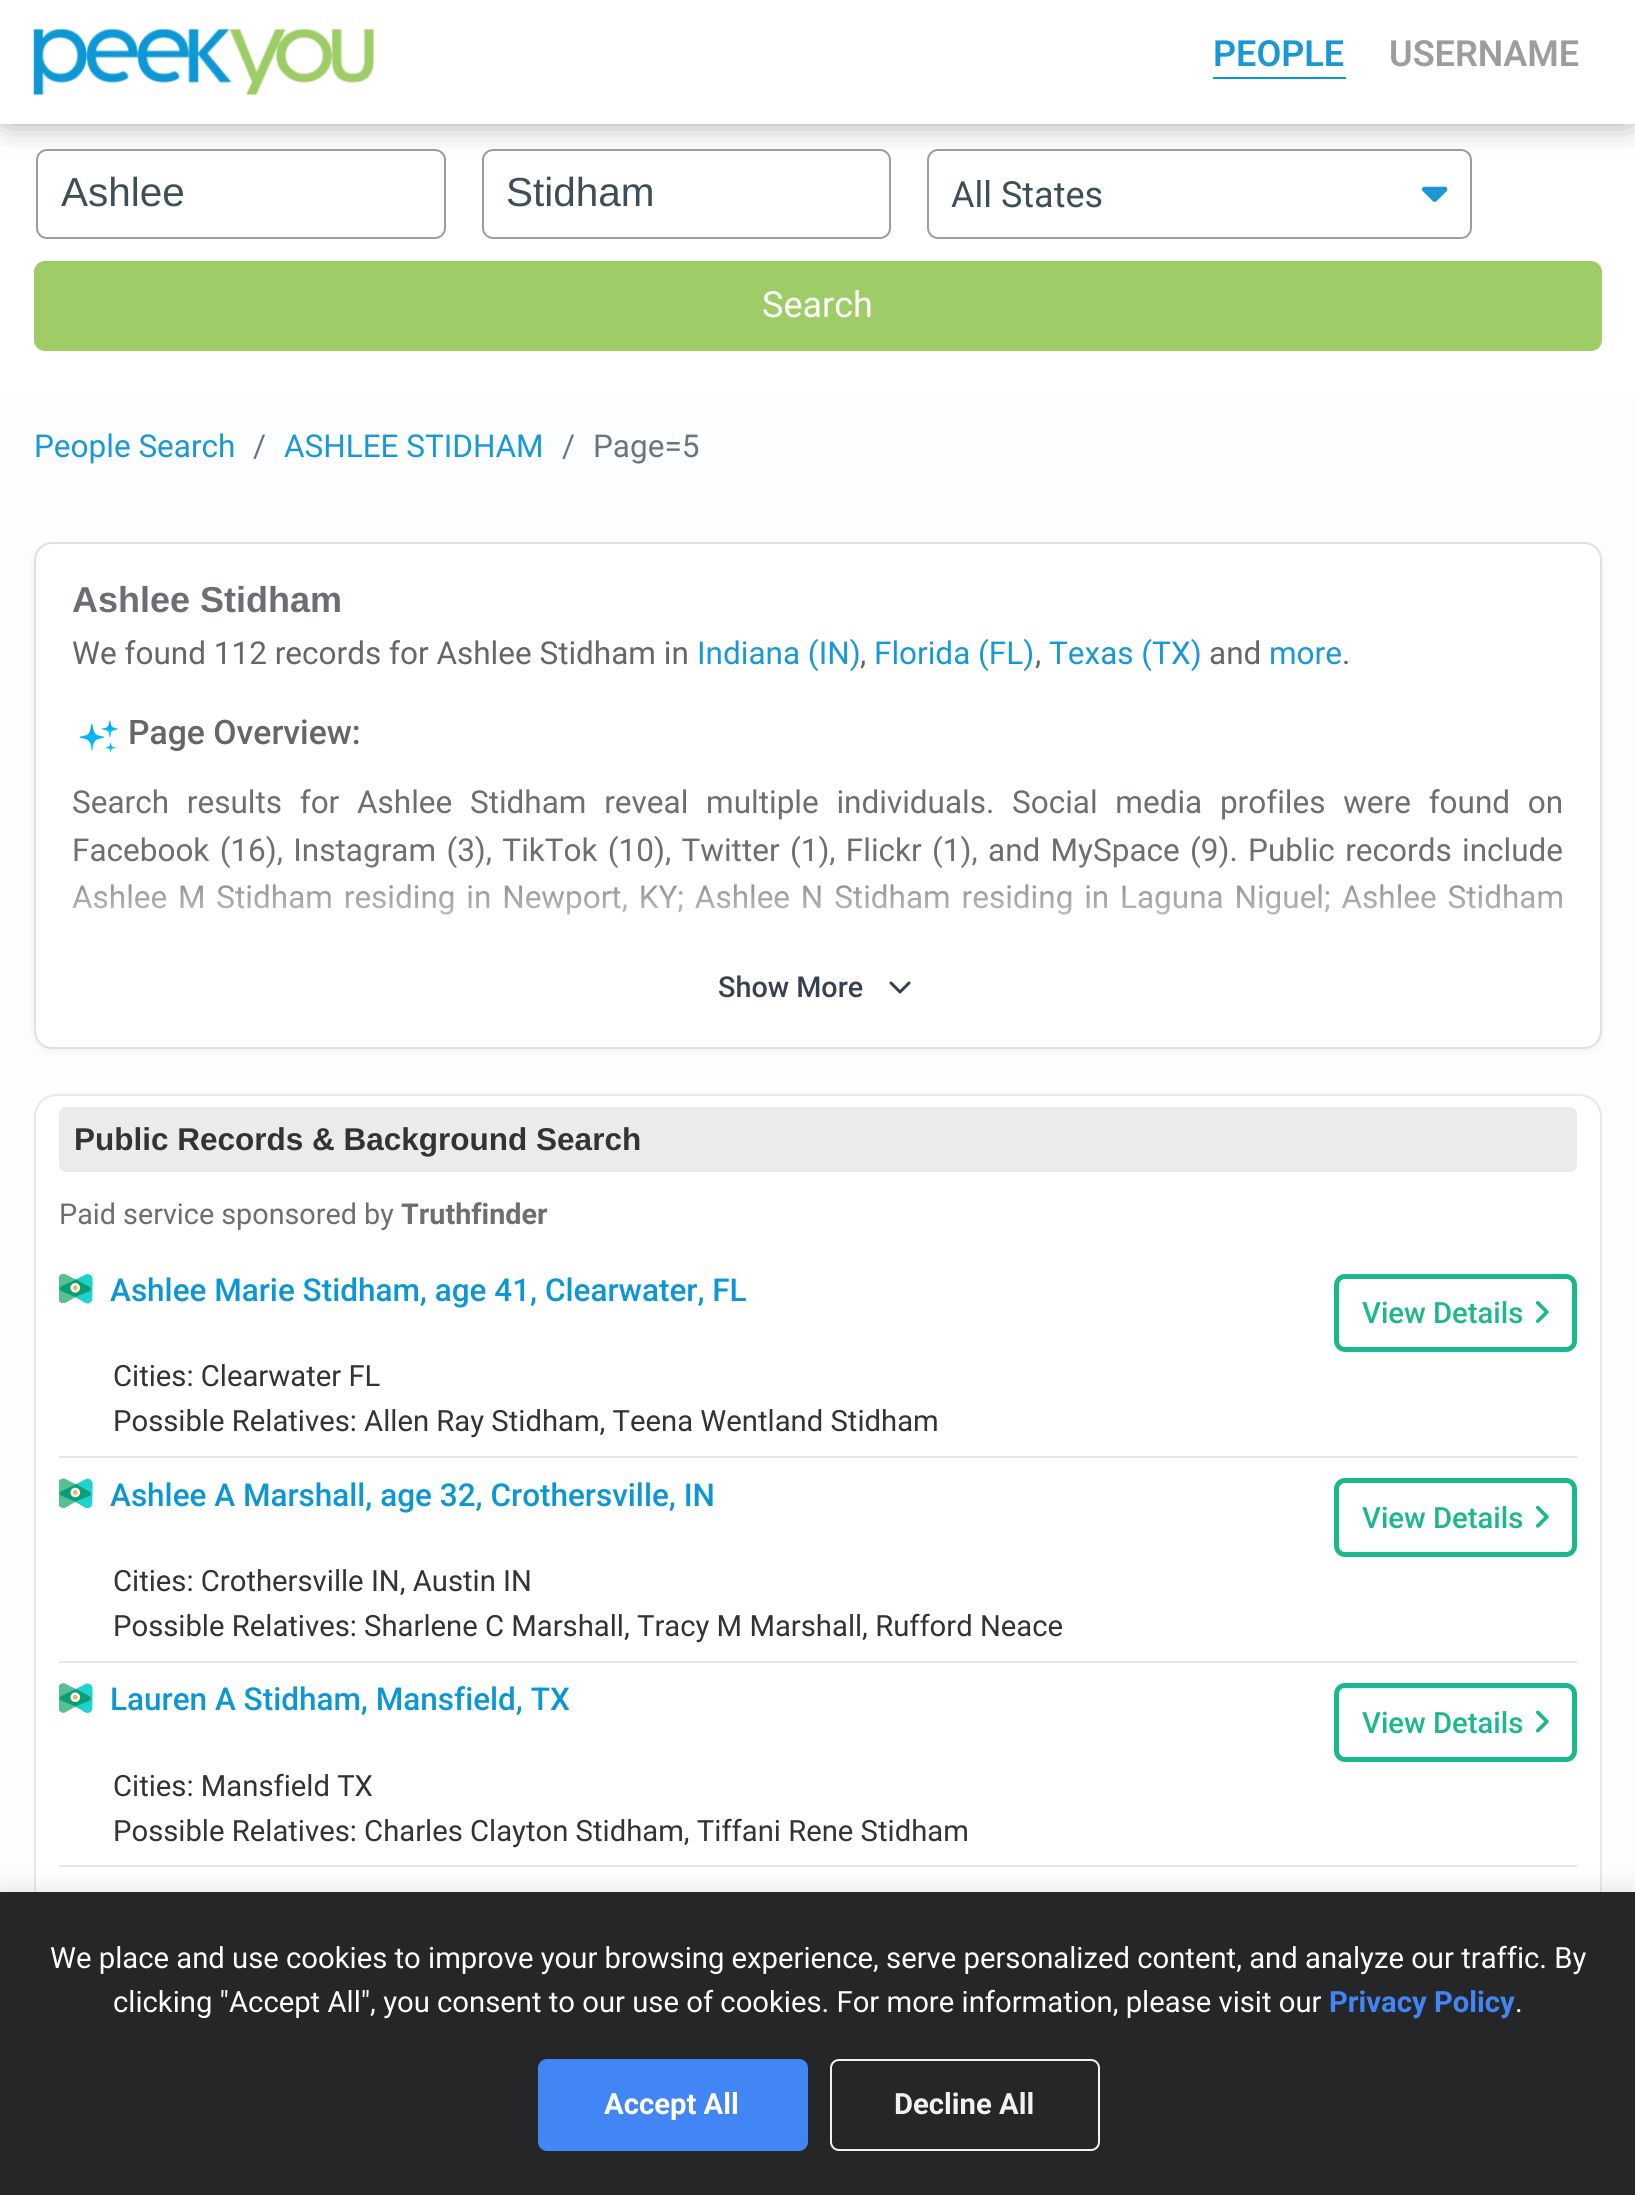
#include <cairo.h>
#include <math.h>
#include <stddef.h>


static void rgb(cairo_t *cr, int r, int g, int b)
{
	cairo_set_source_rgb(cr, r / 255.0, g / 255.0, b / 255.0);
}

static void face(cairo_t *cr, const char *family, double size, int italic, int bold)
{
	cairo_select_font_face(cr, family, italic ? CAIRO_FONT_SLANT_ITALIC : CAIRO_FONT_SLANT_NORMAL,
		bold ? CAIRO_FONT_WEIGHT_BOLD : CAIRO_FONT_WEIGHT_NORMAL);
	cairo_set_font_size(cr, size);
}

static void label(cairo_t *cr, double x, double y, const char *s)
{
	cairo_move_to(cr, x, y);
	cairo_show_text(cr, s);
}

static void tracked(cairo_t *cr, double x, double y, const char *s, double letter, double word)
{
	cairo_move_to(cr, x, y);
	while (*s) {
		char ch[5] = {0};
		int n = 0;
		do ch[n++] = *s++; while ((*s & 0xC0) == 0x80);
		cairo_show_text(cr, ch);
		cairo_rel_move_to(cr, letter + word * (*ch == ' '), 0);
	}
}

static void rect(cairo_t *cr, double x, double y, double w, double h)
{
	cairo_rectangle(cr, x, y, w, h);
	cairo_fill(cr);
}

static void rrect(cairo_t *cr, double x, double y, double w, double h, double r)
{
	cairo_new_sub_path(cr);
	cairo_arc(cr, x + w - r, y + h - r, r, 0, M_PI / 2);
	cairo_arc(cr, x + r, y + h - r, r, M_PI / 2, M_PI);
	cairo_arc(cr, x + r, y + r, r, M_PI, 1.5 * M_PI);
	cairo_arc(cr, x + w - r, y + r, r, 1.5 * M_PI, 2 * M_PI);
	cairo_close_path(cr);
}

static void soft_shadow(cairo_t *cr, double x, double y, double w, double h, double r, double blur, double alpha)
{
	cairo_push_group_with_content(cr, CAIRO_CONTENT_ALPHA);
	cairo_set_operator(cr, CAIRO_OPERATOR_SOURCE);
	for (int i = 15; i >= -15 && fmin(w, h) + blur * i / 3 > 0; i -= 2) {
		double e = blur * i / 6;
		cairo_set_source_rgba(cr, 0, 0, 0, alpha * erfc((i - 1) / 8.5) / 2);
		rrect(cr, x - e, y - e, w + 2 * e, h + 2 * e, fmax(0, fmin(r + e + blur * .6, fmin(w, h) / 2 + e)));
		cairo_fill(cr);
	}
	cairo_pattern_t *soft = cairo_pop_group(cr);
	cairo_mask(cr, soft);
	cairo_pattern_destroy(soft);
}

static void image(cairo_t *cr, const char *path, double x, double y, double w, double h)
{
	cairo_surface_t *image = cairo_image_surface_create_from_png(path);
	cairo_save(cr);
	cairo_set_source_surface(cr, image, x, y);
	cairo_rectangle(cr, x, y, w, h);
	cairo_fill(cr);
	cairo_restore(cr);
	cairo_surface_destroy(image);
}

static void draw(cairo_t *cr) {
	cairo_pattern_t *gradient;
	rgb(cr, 251, 253, 255);
	cairo_paint(cr);
	rgb(cr, 255, 255, 255);
	rect(cr, 0, 146, 1635, 250);
	rrect(cr, 37, 150, 408, 88, 10);
	rgb(cr, 157, 157, 157);
	cairo_stroke(cr);
	rrect(cr, 483, 150, 407, 88, 10);
	cairo_stroke(cr);
	rrect(cr, 928, 150, 543, 88, 10);
	cairo_stroke(cr);
	rgb(cr, 0, 0, 0);
	soft_shadow(cr, 7, 7, 1622, 110, 0, 17, 0.5);
	rgb(cr, 255, 255, 255);
	rect(cr, 0, 0, 1635, 124);
	image(cr, "image0.png", 33, 28, 341, 68);
	face(cr, "Roboto SemiBold", 36, 0, 0);
	rgb(cr, 26, 152, 213);
	label(cr, 1213, 66, "PEOPLE");
	rgb(cr, 12, 151, 212);
	rect(cr, 1213, 77, 133, 2);
	rgb(cr, 157, 157, 157);
	label(cr, 1389, 66, "USERNAME");
	face(cr, "Liberation Sans", 40.5, 0, 0);
	rgb(cr, 61, 79, 86);
	label(cr, 61, 206, "Ashlee");
	label(cr, 506, 206, "Stidham");
	face(cr, "Roboto", 36, 0, 0);
	label(cr, 951, 207, "All States");
	image(cr, "image1.png", 1422, 186, 26, 16);
	rgb(cr, 158, 205, 103);
	rrect(cr, 35, 262, 1566, 88, 10);
	cairo_fill_preserve(cr);
	cairo_stroke(cr);
	rgb(cr, 255, 255, 255);
	label(cr, 762, 317, "Search");
	face(cr, "Roboto", 31.5, 0, 0);
	rgb(cr, 26, 152, 213);
	label(cr, 34, 457, "People Search");
	rgb(cr, 108, 117, 125);
	label(cr, 253, 457, "/");
	rgb(cr, 26, 152, 213);
	label(cr, 284, 457, "ASHLEE STIDHAM");
	rgb(cr, 108, 117, 125);
	label(cr, 562, 457, "/");
	label(cr, 593, 457, "Page=5");
	rgb(cr, 0, 0, 0);
	soft_shadow(cr, 34, 545, 1568, 506, 18, 3.5, 0.05);
	rgb(cr, 255, 255, 255);
	rrect(cr, 35, 543, 1566, 505, 17);
	cairo_fill_preserve(cr);
	rgb(cr, 224, 224, 224);
	cairo_stroke(cr);
	face(cr, "Liberation Sans", 36, 0, 1);
	rgb(cr, 107, 110, 114);
	label(cr, 72, 612, "Ashlee Stidham");
	face(cr, "Roboto", 31.5, 0, 0);
	rgb(cr, 102, 102, 102);
	label(cr, 72, 664, "We found 112 records for Ashlee Stidham in");
	rgb(cr, 26, 152, 213);
	label(cr, 697, 664, "Indiana (IN)");
	rgb(cr, 102, 102, 102);
	label(cr, 860, 664, ",");
	rgb(cr, 26, 152, 213);
	label(cr, 874, 664, "Florida (FL)");
	rgb(cr, 102, 102, 102);
	label(cr, 1035, 664, ",");
	rgb(cr, 26, 152, 213);
	label(cr, 1049, 664, "Texas (TX)");
	rgb(cr, 102, 102, 102);
	label(cr, 1209, 664, "and");
	rgb(cr, 26, 152, 213);
	label(cr, 1269, 664, "more");
	rgb(cr, 102, 102, 102);
	label(cr, 1342, 664, ".");
	image(cr, "image2.png", 79, 720, 39, 33);
	face(cr, "Roboto Medium", 33.75, 0, 0);
	label(cr, 128, 744, "Page Overview:");
	face(cr, "Roboto", 31.5, 0, 0);
	rgb(cr, 107, 110, 114);
	tracked(cr, 72, 813, "Search results for Ashlee Stidham reveal multiple individuals. Social media profiles were found on", 0, 9.9);
	tracked(cr, 72, 861, "Facebook (16), Instagram (3), TikTok (10), Twitter (1), Flickr (1), and MySpace (9). Public records include", 0, 2.5);
	tracked(cr, 72, 908, "Ashlee M Stidham residing in Newport, KY; Ashlee N Stidham residing in Laguna Niguel; Ashlee Stidham", 0, 3);
	gradient = cairo_pattern_create_linear(818, 965, 818, 857);
	cairo_pattern_add_color_stop_rgba(gradient, 0, 1, 1, 1, 1);
	cairo_pattern_add_color_stop_rgba(gradient, 1, 1, 1, 1, 0);
	cairo_set_source(cr, gradient);
	cairo_pattern_destroy(gradient);
	rect(cr, 72, 859, 1490, 56);
	face(cr, "Roboto Medium", 28.75, 0, 0);
	rgb(cr, 55, 65, 81);
	label(cr, 718, 997, "Show More");
	cairo_new_path(cr);
	cairo_move_to(cr, 891, 983);
	cairo_line_to(cr, 900, 992);
	cairo_line_to(cr, 909, 983);
	cairo_set_line_width(cr, 3);
	cairo_set_line_cap(cr, CAIRO_LINE_CAP_ROUND);
	cairo_set_line_join(cr, CAIRO_LINE_JOIN_ROUND);
	cairo_stroke(cr);
	rgb(cr, 255, 255, 255);
	rrect(cr, 35, 1095, 1566, 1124, 22);
	cairo_fill_preserve(cr);
	rgb(cr, 232, 232, 232);
	cairo_set_line_width(cr, 2);
	cairo_set_line_cap(cr, CAIRO_LINE_CAP_BUTT);
	cairo_set_line_join(cr, CAIRO_LINE_JOIN_MITER);
	cairo_stroke(cr);
	rgb(cr, 235, 235, 235);
	rrect(cr, 59, 1107, 1518, 65, 7);
	cairo_fill(cr);
	face(cr, "Liberation Sans", 31.5, 0, 1);
	rgb(cr, 51, 51, 51);
	label(cr, 74, 1150, "Public Records & Background Search");
	face(cr, "Roboto", 28.75, 0, 0);
	rgb(cr, 107, 110, 114);
	label(cr, 59, 1224, "Paid service sponsored by");
	face(cr, "Roboto", 28.75, 0, 1);
	label(cr, 401, 1224, "Truthfinder");
	rgb(cr, 230, 230, 230);
	rect(cr, 59, 1456, 1518, 2);
	image(cr, "image3.png", 58, 1274, 35, 30);
	image(cr, "image4.png", 58, 1274, 35, 30);
	face(cr, "Roboto Medium", 31.5, 0, 0);
	rgb(cr, 12, 151, 212);
	label(cr, 110, 1301, "Ashlee Marie Stidham, age 41, Clearwater, FL");
	rrect(cr, 1336.5, 1276.5, 238, 73, 8.5);
	rgb(cr, 28, 184, 141);
	cairo_set_line_width(cr, 5);
	cairo_stroke(cr);
	face(cr, "Roboto Medium", 29.25, 0, 0);
	label(cr, 1362, 1323, "View Details");
	image(cr, "image5.png", 1535, 1301, 14, 22);
	face(cr, "Roboto", 29.25, 0, 0);
	rgb(cr, 51, 51, 51);
	label(cr, 113, 1386, "Cities: Clearwater FL");
	label(cr, 113, 1431, "Possible Relatives: Allen Ray Stidham, Teena Wentland Stidham");
	rgb(cr, 230, 230, 230);
	rect(cr, 59, 1661, 1518, 2);
	image(cr, "image6.png", 58, 1478, 35, 30);
	image(cr, "image7.png", 58, 1478, 35, 30);
	face(cr, "Roboto Medium", 31.5, 0, 0);
	rgb(cr, 12, 151, 212);
	label(cr, 110, 1506, "Ashlee A Marshall, age 32, Crothersville, IN");
	rrect(cr, 1336.5, 1480.5, 238, 74, 8.5);
	rgb(cr, 28, 184, 141);
	cairo_stroke(cr);
	face(cr, "Roboto Medium", 29.25, 0, 0);
	label(cr, 1362, 1528, "View Details");
	image(cr, "image8.png", 1535, 1505, 14, 23);
	face(cr, "Roboto", 29.25, 0, 0);
	rgb(cr, 51, 51, 51);
	label(cr, 113, 1591, "Cities: Crothersville IN, Austin IN");
	label(cr, 113, 1636, "Possible Relatives: Sharlene C Marshall, Tracy M Marshall, Rufford Neace");
	rgb(cr, 230, 230, 230);
	rect(cr, 59, 1865, 1518, 2);
	image(cr, "image9.png", 58, 1683, 35, 30);
	image(cr, "image10.png", 58, 1683, 35, 30);
	face(cr, "Roboto Medium", 31.5, 0, 0);
	rgb(cr, 12, 151, 212);
	label(cr, 110, 1710, "Lauren A Stidham, Mansfield, TX");
	rrect(cr, 1336.5, 1685.5, 238, 74, 8.5);
	rgb(cr, 28, 184, 141);
	cairo_stroke(cr);
	face(cr, "Roboto Medium", 29.25, 0, 0);
	label(cr, 1362, 1733, "View Details");
	image(cr, "image11.png", 1535, 1710, 14, 23);
	face(cr, "Roboto", 29.25, 0, 0);
	rgb(cr, 51, 51, 51);
	label(cr, 113, 1796, "Cities: Mansfield TX");
	label(cr, 113, 1841, "Possible Relatives: Charles Clayton Stidham, Tiffani Rene Stidham");
	rgb(cr, 0, 0, 0);
	soft_shadow(cr, 0, 1888, 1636, 304, 0, 11, 0.1);
	rgb(cr, 37, 38, 39);
	rect(cr, 0, 1892, 1635, 303);
	rgb(cr, 255, 255, 255);
	label(cr, 50, 1968, "We place and use cookies to improve your browsing experience, serve personalized content, and analyze our traffic. By");
	label(cr, 113, 2012, "clicking \"Accept All\", you consent to our use of cookies. For more information, please visit our");
	face(cr, "Roboto", 29.25, 0, 1);
	rgb(cr, 66, 133, 244);
	label(cr, 1329, 2012, "Privacy Policy");
	face(cr, "Roboto", 29.25, 0, 0);
	rgb(cr, 255, 255, 255);
	label(cr, 1515, 2012, ".");
	rgb(cr, 66, 133, 244);
	rrect(cr, 538, 2059, 270, 92, 9);
	cairo_fill(cr);
	face(cr, "Roboto", 29.25, 0, 1);
	rgb(cr, 255, 255, 255);
	label(cr, 604, 2114, "Accept All");
	rrect(cr, 831, 2060, 268, 90, 8);
	rgb(cr, 241, 241, 241);
	cairo_set_line_width(cr, 2);
	cairo_stroke(cr);
	label(cr, 894, 2114, "Decline All");
}

int main(void) {
	cairo_surface_t *surface = cairo_image_surface_create(CAIRO_FORMAT_RGB24, 1635, 2195);
	cairo_t *cr = cairo_create(surface);
	cairo_font_options_t *options = cairo_font_options_create();
	cairo_font_options_set_hint_metrics(options, CAIRO_HINT_METRICS_OFF);
	cairo_font_options_set_hint_style(options, CAIRO_HINT_STYLE_NONE);
	cairo_set_font_options(cr, options);
	cairo_set_miter_limit(cr, 4);
	draw(cr);
	cairo_surface_write_to_png(surface, "render.png");
	cairo_font_options_destroy(options);
	cairo_destroy(cr);
	cairo_surface_destroy(surface);
	return 0;
}
